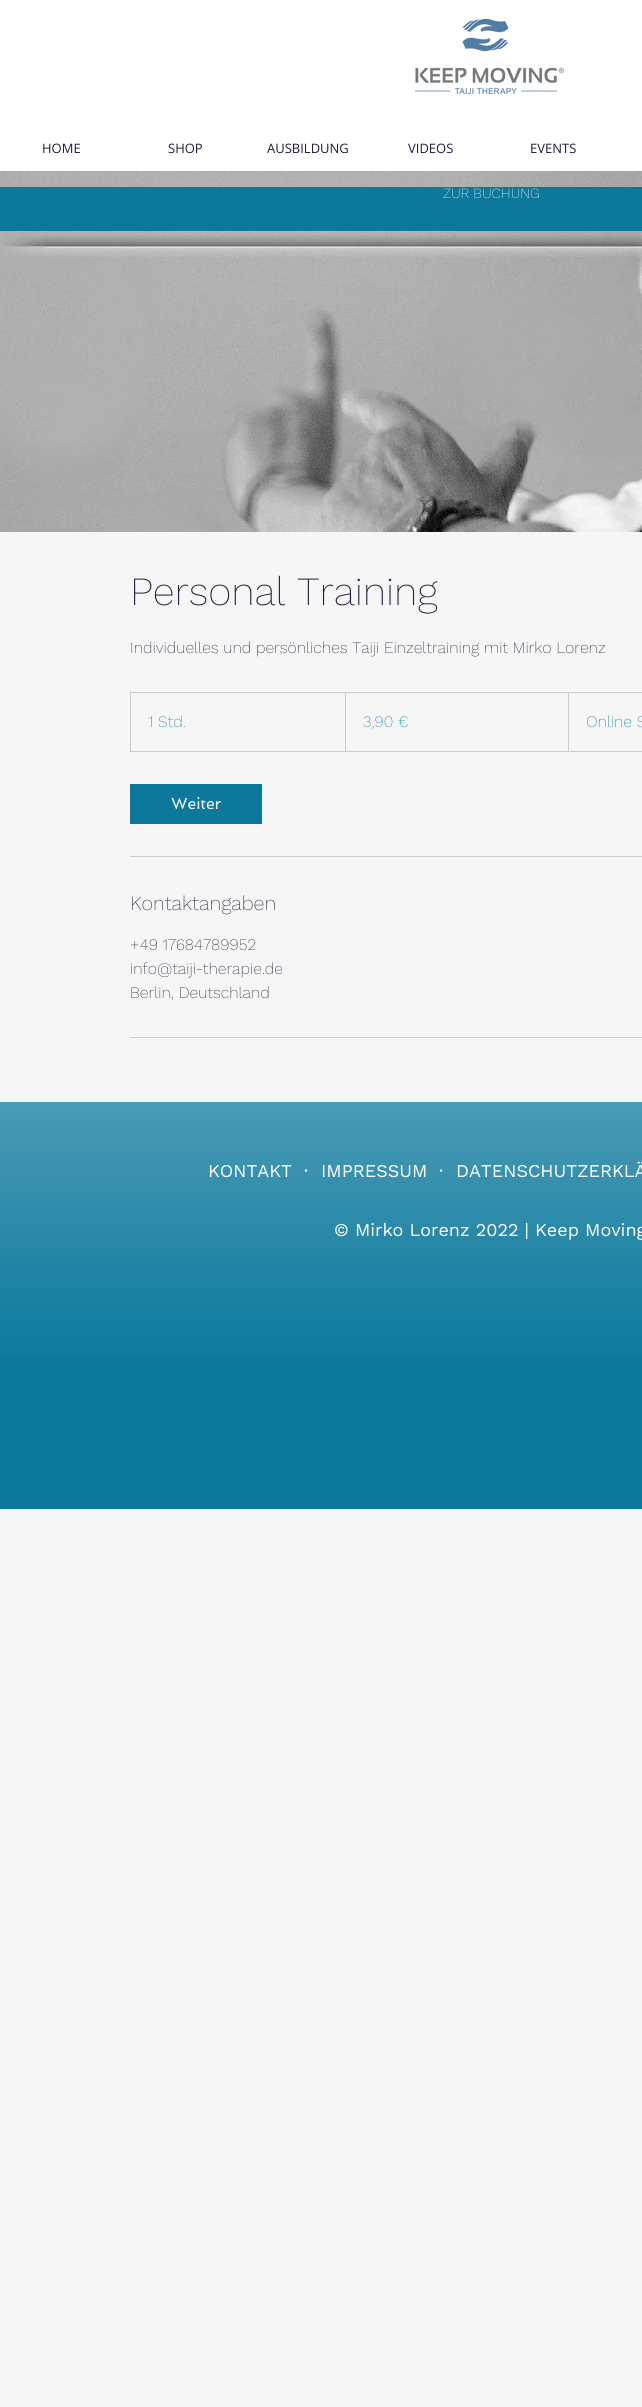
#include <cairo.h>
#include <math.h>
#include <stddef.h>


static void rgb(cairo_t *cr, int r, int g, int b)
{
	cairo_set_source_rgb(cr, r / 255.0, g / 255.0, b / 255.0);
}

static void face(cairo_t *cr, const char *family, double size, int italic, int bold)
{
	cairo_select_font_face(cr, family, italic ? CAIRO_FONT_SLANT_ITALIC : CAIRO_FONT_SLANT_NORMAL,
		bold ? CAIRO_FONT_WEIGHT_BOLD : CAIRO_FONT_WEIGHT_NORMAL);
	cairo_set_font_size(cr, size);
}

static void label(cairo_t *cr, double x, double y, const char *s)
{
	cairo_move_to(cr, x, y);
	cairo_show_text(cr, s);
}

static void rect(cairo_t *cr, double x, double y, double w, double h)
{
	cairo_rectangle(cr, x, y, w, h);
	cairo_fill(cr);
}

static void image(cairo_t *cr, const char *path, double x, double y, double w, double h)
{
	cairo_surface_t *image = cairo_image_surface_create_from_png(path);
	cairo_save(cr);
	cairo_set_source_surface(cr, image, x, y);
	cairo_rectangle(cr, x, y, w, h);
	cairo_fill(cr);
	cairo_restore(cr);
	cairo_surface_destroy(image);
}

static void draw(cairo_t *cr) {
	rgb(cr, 246, 246, 246);
	cairo_paint(cr);
	rgb(cr, 255, 255, 255);
	rect(cr, 0, 0, 642, 171);
	image(cr, "image0.png", 415, 19, 149, 75);
	face(cr, "Open Sans", 13, 0, 0);
	rgb(cr, 40, 26, 57);
	label(cr, 42, 153, "HOME");
	label(cr, 168, 153, "SHOP");
	label(cr, 267, 153, "AUSBILDUNG");
	label(cr, 408, 153, "VIDEOS");
	label(cr, 530, 153, "EVENTS");
	image(cr, "image1.png", 0, 171, 642, 361);
	rgb(cr, 11, 120, 156);
	rect(cr, 0, 187, 642, 44);
	face(cr, "Work Sans ExtraLight", 14, 0, 0);
	rgb(cr, 255, 255, 255);
	label(cr, 443, 198, "ZUR BUCHUNG");
	image(cr, "image2.png", 45, 235, 597, 22);
	image(cr, "image3.png", 3, 235, 42, 21);
	face(cr, "Work Sans ExtraLight", 40, 0, 0);
	rgb(cr, 40, 26, 57);
	label(cr, 130, 605, "Personal Training");
	face(cr, "Work Sans ExtraLight", 16, 0, 0);
	label(cr, 130, 653, "Individuelles und persönliches Taiji Einzeltraining mit Mirko Lorenz");
	cairo_rectangle(cr, 130.5, 692.5, 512, 59);
	rgb(cr, 205, 202, 208);
	cairo_set_line_width(cr, 1);
	cairo_stroke(cr);
	rgb(cr, 11, 120, 156);
	label(cr, 148, 727, "1 Std.");
	rgb(cr, 205, 202, 208);
	cairo_new_path(cr);
	cairo_move_to(cr, 345, 751);
	cairo_line_to(cr, 345, 692);
	cairo_line_to(cr, 346, 693);
	cairo_line_to(cr, 346, 751);
	cairo_close_path(cr);
	cairo_fill(cr);
	rgb(cr, 11, 120, 156);
	label(cr, 363, 727, "3,90 €");
	rgb(cr, 205, 202, 208);
	cairo_new_path(cr);
	cairo_move_to(cr, 568, 751);
	cairo_line_to(cr, 568, 692);
	cairo_line_to(cr, 569, 693);
	cairo_line_to(cr, 569, 751);
	cairo_close_path(cr);
	cairo_fill(cr);
	rgb(cr, 11, 120, 156);
	label(cr, 586, 727, "Online S");
	rect(cr, 130, 784, 132, 40);
	face(cr, "Spinnaker", 16, 0, 0);
	rgb(cr, 246, 246, 246);
	label(cr, 171, 809, "Weiter");
	rgb(cr, 205, 202, 208);
	rect(cr, 130, 856, 512, 1);
	face(cr, "Work Sans ExtraLight", 20, 0, 0);
	rgb(cr, 40, 26, 57);
	label(cr, 130, 910, "Kontaktangaben");
	face(cr, "Work Sans ExtraLight", 16, 0, 0);
	label(cr, 130, 950, "+49 17684789952");
	label(cr, 130, 974, "info@taiji-therapie.de");
	label(cr, 130, 998, "Berlin, Deutschland");
	rgb(cr, 205, 202, 208);
	rect(cr, 130, 1037, 512, 1);
	rgb(cr, 11, 120, 156);
	rect(cr, 0, 1102, 642, 407);
	image(cr, "image4.png", 0, 1102, 642, 254);
	face(cr, "Work Sans", 18, 0, 0);
	rgb(cr, 255, 255, 255);
	label(cr, 208, 1177, "KONTAKT");
	label(cr, 304, 1177, "·");
	label(cr, 321, 1177, "IMPRESSUM");
	label(cr, 439, 1177, "·");
	label(cr, 456, 1177, "DATENSCHUTZERKLÄ");
	label(cr, 334, 1236, "© Mirko Lorenz 2022 | Keep Moving");
}

int main(void) {
	cairo_surface_t *surface = cairo_image_surface_create(CAIRO_FORMAT_RGB24, 642, 2407);
	cairo_t *cr = cairo_create(surface);
	cairo_font_options_t *options = cairo_font_options_create();
	cairo_font_options_set_hint_metrics(options, CAIRO_HINT_METRICS_OFF);
	cairo_font_options_set_hint_style(options, CAIRO_HINT_STYLE_NONE);
	cairo_set_font_options(cr, options);
	cairo_set_miter_limit(cr, 4);
	draw(cr);
	cairo_surface_write_to_png(surface, "render.png");
	cairo_font_options_destroy(options);
	cairo_destroy(cr);
	cairo_surface_destroy(surface);
	return 0;
}
